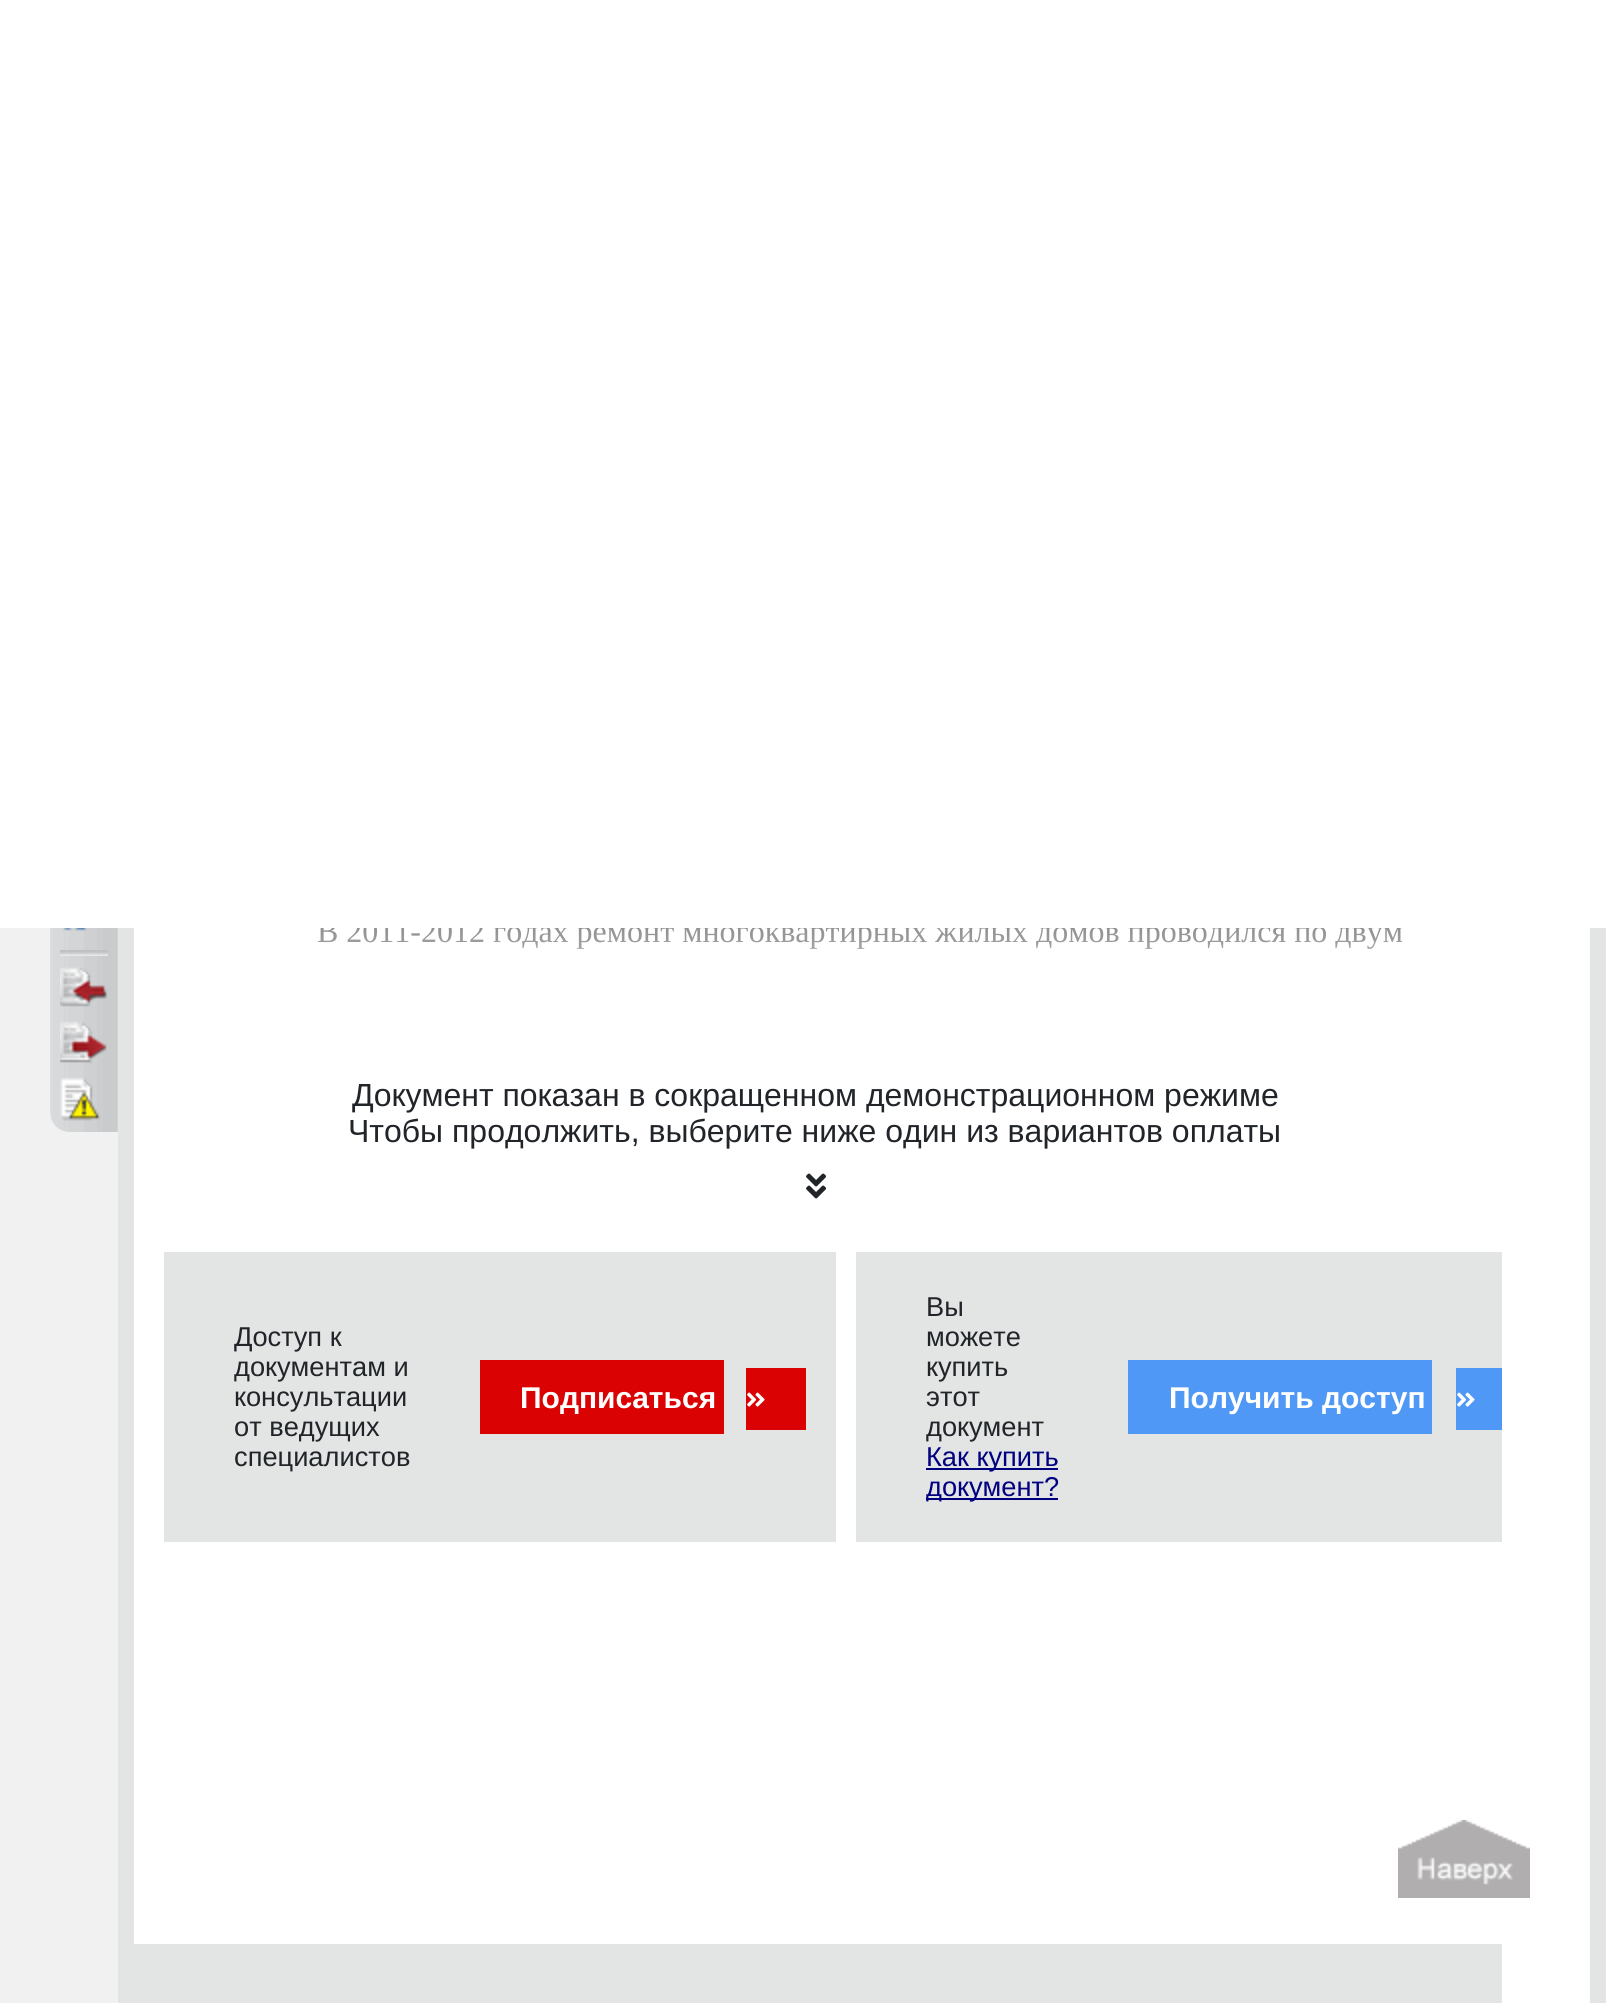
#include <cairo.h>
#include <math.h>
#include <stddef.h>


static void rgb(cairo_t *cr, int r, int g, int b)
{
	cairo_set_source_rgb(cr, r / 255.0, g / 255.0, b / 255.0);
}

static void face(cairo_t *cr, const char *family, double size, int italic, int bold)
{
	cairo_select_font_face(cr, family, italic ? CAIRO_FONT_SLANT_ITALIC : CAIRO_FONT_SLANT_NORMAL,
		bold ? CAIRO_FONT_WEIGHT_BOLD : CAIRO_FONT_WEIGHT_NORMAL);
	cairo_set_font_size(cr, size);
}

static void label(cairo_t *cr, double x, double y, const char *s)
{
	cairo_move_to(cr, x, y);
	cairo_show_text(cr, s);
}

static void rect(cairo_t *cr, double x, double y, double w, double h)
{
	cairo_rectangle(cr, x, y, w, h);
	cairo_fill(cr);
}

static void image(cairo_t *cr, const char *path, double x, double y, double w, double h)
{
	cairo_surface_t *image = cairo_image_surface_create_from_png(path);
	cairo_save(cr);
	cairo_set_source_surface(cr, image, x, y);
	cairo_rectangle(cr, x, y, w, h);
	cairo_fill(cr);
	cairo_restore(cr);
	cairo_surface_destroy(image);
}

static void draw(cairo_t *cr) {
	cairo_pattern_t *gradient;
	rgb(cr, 241, 241, 241);
	cairo_paint(cr);
	rgb(cr, 255, 255, 255);
	rect(cr, 134, 928, 1456, 1075);
	cairo_rectangle(cr, 126, -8, 1472, 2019);
	rgb(cr, 227, 229, 228);
	cairo_set_line_width(cr, 16);
	cairo_stroke(cr);
	face(cr, "Liberation Serif", 32, 0, 0);
	rgb(cr, 0, 0, 0);
	label(cr, 317, 942, "В 2011-2012 годах ремонт многоквартирных жилых домов проводился по двум");
	rgb(cr, 255, 255, 255);
	rect(cr, 0, 0, 1606, 928);
	image(cr, "image0.png", 50, 928, 68, 204);
	image(cr, "image1.png", 63, 928, 24, 3);
	image(cr, "image2.png", 60, 950, 48, 6);
	image(cr, "image3.png", 60, 967, 48, 40);
	image(cr, "image4.png", 60, 1021, 47, 43);
	image(cr, "image5.png", 60, 1077, 41, 44);
	gradient = cairo_pattern_create_linear(815, 758, 815, 1058);
	cairo_pattern_add_color_stop_rgba(gradient, 0, 1, 1, 1, 0);
	cairo_pattern_add_color_stop_rgba(gradient, 1, 1, 1, 1, 1);
	cairo_set_source(cr, gradient);
	cairo_pattern_destroy(gradient);
	rect(cr, 318, 928, 1085, 21);
	face(cr, "Liberation Sans", 32, 0, 0);
	rgb(cr, 33, 37, 41);
	label(cr, 352, 1106, "Документ показан в сокращенном демонстрационном режиме");
	label(cr, 348, 1142, "Чтобы продолжить, выберите ниже один из вариантов оплаты");
	image(cr, "image6.png", 806, 1173, 20, 26);
	rgb(cr, 227, 229, 228);
	rect(cr, 164, 1252, 672, 290);
	face(cr, "Liberation Sans", 27.25, 0, 0);
	rgb(cr, 33, 37, 41);
	label(cr, 234, 1346, "Доступ к");
	label(cr, 234, 1376, "документам и");
	label(cr, 234, 1406, "консультации");
	label(cr, 234, 1436, "от ведущих");
	label(cr, 234, 1466, "специалистов");
	rgb(cr, 218, 2, 2);
	rect(cr, 480, 1360, 244, 74);
	rect(cr, 746, 1368, 60, 62);
	face(cr, "Liberation Sans", 30, 0, 1);
	rgb(cr, 255, 255, 255);
	label(cr, 520, 1408, "Подписаться");
	image(cr, "image7.png", 747, 1392, 18, 15);
	rgb(cr, 227, 229, 228);
	rect(cr, 856, 1252, 646, 290);
	face(cr, "Liberation Sans", 27.25, 0, 0);
	rgb(cr, 33, 37, 41);
	label(cr, 926, 1316, "Вы");
	label(cr, 926, 1346, "можете");
	label(cr, 926, 1376, "купить");
	label(cr, 926, 1406, "этот");
	label(cr, 926, 1436, "документ");
	rgb(cr, 0, 0, 128);
	rect(cr, 926, 1468, 132, 2);
	label(cr, 926, 1466, "Как купить");
	rect(cr, 926, 1498, 132, 2);
	label(cr, 926, 1496, "документ?");
	rgb(cr, 80, 152, 245);
	rect(cr, 1128, 1360, 304, 74);
	rect(cr, 1456, 1368, 46, 62);
	face(cr, "Liberation Sans", 30, 0, 1);
	rgb(cr, 255, 255, 255);
	label(cr, 1169, 1408, "Получить доступ");
	image(cr, "image8.png", 1457, 1392, 18, 15);
	image(cr, "image9.png", 1398, 1820, 132, 78);
	rgb(cr, 227, 229, 228);
	rect(cr, 134, 1944, 1368, 59);
}

int main(void) {
	cairo_surface_t *surface = cairo_image_surface_create(CAIRO_FORMAT_RGB24, 1606, 2003);
	cairo_t *cr = cairo_create(surface);
	cairo_font_options_t *options = cairo_font_options_create();
	cairo_font_options_set_hint_metrics(options, CAIRO_HINT_METRICS_OFF);
	cairo_font_options_set_hint_style(options, CAIRO_HINT_STYLE_NONE);
	cairo_set_font_options(cr, options);
	cairo_set_miter_limit(cr, 4);
	draw(cr);
	cairo_surface_write_to_png(surface, "render.png");
	cairo_font_options_destroy(options);
	cairo_destroy(cr);
	cairo_surface_destroy(surface);
	return 0;
}
